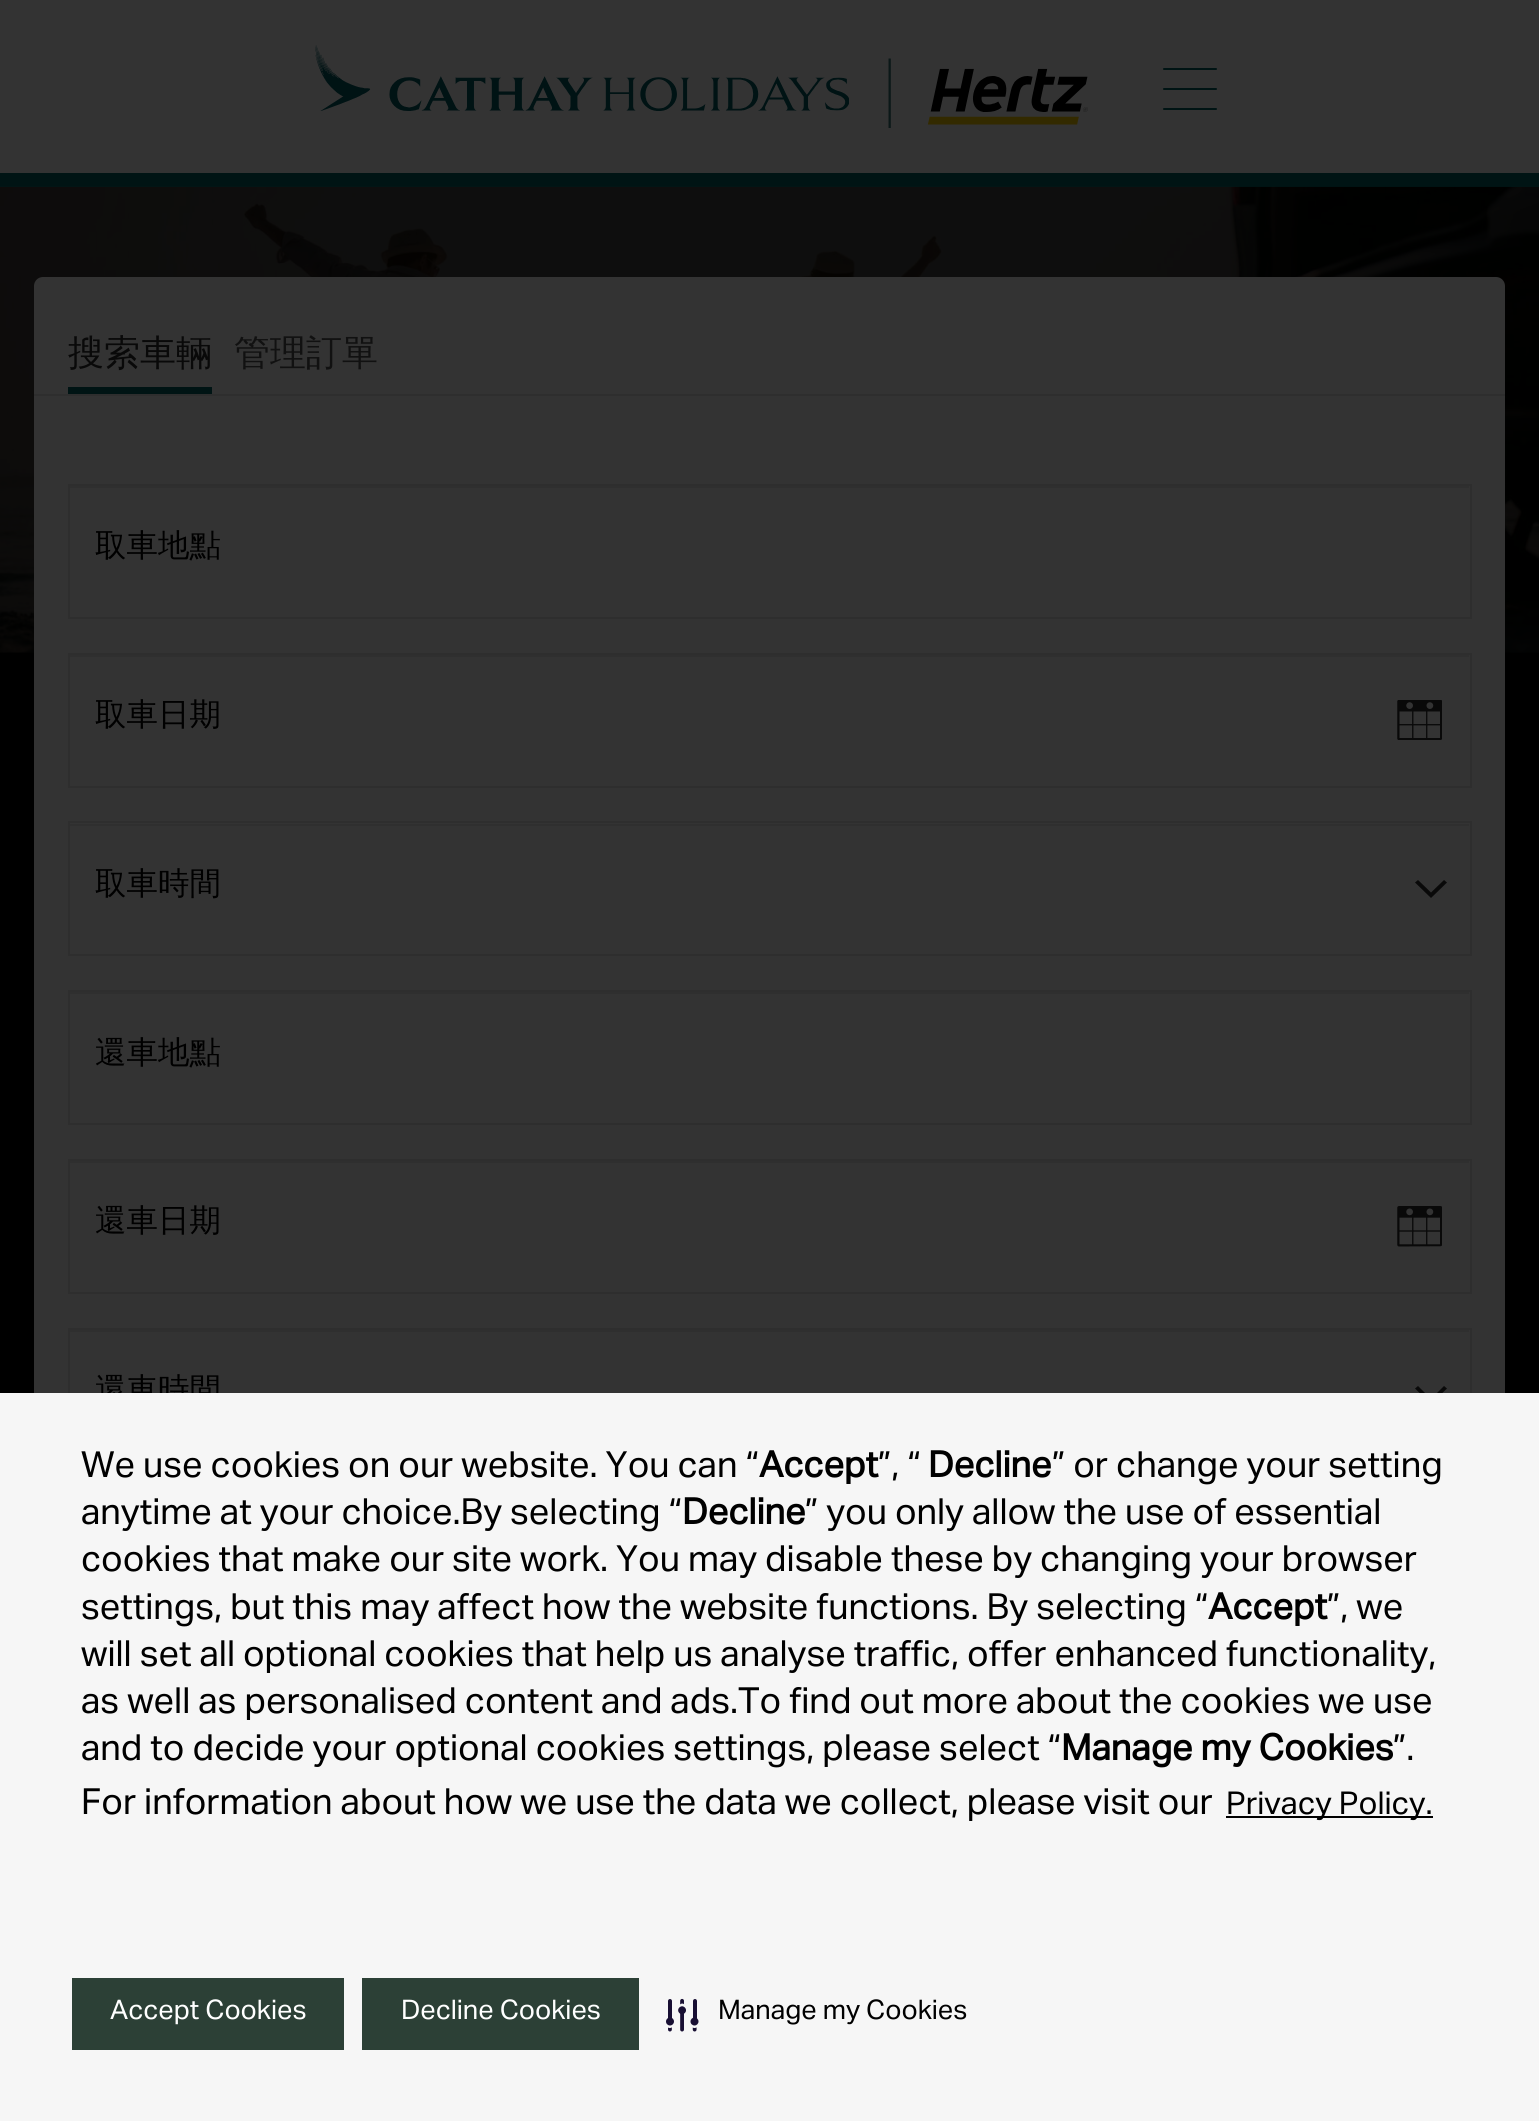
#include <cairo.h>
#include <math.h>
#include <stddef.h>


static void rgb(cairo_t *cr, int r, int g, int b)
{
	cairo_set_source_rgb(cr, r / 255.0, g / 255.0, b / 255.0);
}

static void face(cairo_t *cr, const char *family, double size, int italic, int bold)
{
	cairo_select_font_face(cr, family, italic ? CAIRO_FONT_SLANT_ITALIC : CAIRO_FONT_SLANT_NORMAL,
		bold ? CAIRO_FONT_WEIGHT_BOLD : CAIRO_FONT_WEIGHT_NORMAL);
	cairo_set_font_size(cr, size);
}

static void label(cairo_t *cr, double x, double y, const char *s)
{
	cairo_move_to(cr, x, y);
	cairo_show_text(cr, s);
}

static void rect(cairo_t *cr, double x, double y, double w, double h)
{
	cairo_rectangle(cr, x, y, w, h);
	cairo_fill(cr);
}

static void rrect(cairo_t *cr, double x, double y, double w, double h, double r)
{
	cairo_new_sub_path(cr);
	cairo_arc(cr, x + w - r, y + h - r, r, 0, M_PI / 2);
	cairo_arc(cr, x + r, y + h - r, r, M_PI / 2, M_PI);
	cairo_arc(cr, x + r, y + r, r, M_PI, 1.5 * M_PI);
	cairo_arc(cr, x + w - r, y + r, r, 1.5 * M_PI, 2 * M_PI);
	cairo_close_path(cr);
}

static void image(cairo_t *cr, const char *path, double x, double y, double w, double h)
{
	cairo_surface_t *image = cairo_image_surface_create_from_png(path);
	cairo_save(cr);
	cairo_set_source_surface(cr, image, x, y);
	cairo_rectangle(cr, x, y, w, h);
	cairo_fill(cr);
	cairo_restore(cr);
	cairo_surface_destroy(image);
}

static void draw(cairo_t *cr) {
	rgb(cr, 51, 51, 51);
	cairo_paint(cr);
	rgb(cr, 0, 20, 20);
	rect(cr, 0, 173, 1539, 14);
	image(cr, "image0.png", 315, 45, 773, 83);
	rrect(cr, 1163, 68, 54, 2, 1);
	cairo_fill(cr);
	rrect(cr, 1163, 88, 54, 2, 1);
	cairo_fill(cr);
	rrect(cr, 1163, 108, 54, 2, 1);
	cairo_fill(cr);
	rgb(cr, 0, 0, 0);
	rect(cr, 0, 652, 1539, 741);
	image(cr, "image1.png", 0, 186, 1539, 467);
	rgb(cr, 51, 51, 51);
	rrect(cr, 34, 277, 1471, 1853, 9);
	cairo_fill(cr);
	rgb(cr, 46, 46, 46);
	rect(cr, 34, 394, 1471, 2);
	rgb(cr, 0, 20, 20);
	rect(cr, 68, 387, 144, 7);
	face(cr, "WenQuanYi Zen Hei Medium", 36, 0, 0);
	rgb(cr, 9, 9, 9);
	label(cr, 68, 365, "搜索車輛");
	rgb(cr, 17, 17, 17);
	label(cr, 234, 365, "管理訂單");
	rgb(cr, 47, 47, 47);
	rect(cr, 70, 486, 1399, 2);
	cairo_rectangle(cr, 69, 485, 1402, 133);
	rgb(cr, 46, 46, 46);
	cairo_stroke(cr);
	face(cr, "WenQuanYi Zen Hei Medium", 31.5, 0, 0);
	rgb(cr, 0, 0, 0);
	label(cr, 95, 556, "取車地點");
	image(cr, "image2.png", 1397, 700, 45, 40);
	rgb(cr, 47, 47, 47);
	rect(cr, 70, 655, 1399, 2);
	cairo_rectangle(cr, 69, 654, 1402, 133);
	rgb(cr, 46, 46, 46);
	cairo_stroke(cr);
	rgb(cr, 0, 0, 0);
	label(cr, 95, 725, "取車日期");
	rgb(cr, 9, 9, 9);
	cairo_set_fill_rule(cr, CAIRO_FILL_RULE_EVEN_ODD);
	cairo_new_path(cr);
	cairo_move_to(cr, 1444, 880);
	cairo_line_to(cr, 1447, 882.5);
	cairo_line_to(cr, 1431, 898);
	cairo_line_to(cr, 1415, 882.5);
	cairo_line_to(cr, 1418, 880);
	cairo_line_to(cr, 1431, 892.5);
	cairo_close_path(cr);
	cairo_fill(cr);
	rgb(cr, 47, 47, 47);
	rect(cr, 70, 824, 1399, 2);
	cairo_rectangle(cr, 69, 822, 1402, 133);
	rgb(cr, 46, 46, 46);
	cairo_stroke(cr);
	rgb(cr, 0, 0, 0);
	label(cr, 95, 894, "取車時間");
	rgb(cr, 47, 47, 47);
	rect(cr, 70, 992, 1399, 2);
	cairo_rectangle(cr, 69, 991, 1402, 133);
	rgb(cr, 46, 46, 46);
	cairo_stroke(cr);
	rgb(cr, 0, 0, 0);
	label(cr, 95, 1063, "還車地點");
	image(cr, "image3.png", 1397, 1206, 45, 41);
	rgb(cr, 47, 47, 47);
	rect(cr, 70, 1161, 1399, 2);
	cairo_rectangle(cr, 69, 1160, 1402, 133);
	rgb(cr, 46, 46, 46);
	cairo_stroke(cr);
	rgb(cr, 0, 0, 0);
	label(cr, 95, 1231, "還車日期");
	rgb(cr, 9, 9, 9);
	cairo_new_path(cr);
	cairo_move_to(cr, 1444, 1386);
	cairo_line_to(cr, 1447, 1388.5);
	cairo_line_to(cr, 1431, 1404);
	cairo_line_to(cr, 1415, 1388.5);
	cairo_line_to(cr, 1418, 1386);
	cairo_line_to(cr, 1431, 1399);
	cairo_close_path(cr);
	cairo_fill(cr);
	rgb(cr, 47, 47, 47);
	rect(cr, 70, 1330, 1399, 2);
	cairo_rectangle(cr, 69, 1329, 1402, 133);
	rgb(cr, 46, 46, 46);
	cairo_stroke(cr);
	rgb(cr, 0, 0, 0);
	label(cr, 95, 1400, "還車時間");
	rgb(cr, 246, 246, 246);
	rect(cr, 0, 1393, 1539, 728);
	face(cr, "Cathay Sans", 36, 0, 0);
	rgb(cr, 0, 0, 0);
	label(cr, 81, 1477, "We use cookies on our website. You can “");
	face(cr, "Cathay Sans", 36, 0, 1);
	label(cr, 759, 1477, "Accept");
	face(cr, "Cathay Sans", 36, 0, 0);
	label(cr, 878, 1477, "”, “");
	face(cr, "Cathay Sans", 36, 0, 1);
	label(cr, 928, 1477, "Decline");
	face(cr, "Cathay Sans", 36, 0, 0);
	label(cr, 1052, 1477, "” or change your setting");
	label(cr, 81, 1524, "anytime at your choice.By selecting “");
	face(cr, "Cathay Sans", 36, 0, 1);
	label(cr, 682, 1524, "Decline");
	face(cr, "Cathay Sans", 36, 0, 0);
	label(cr, 805, 1524, "” you only allow the use of essential");
	label(cr, 81, 1571, "cookies that make our site work. You may disable these by changing your browser");
	label(cr, 81, 1619, "settings, but this may affect how the website functions. By selecting “");
	face(cr, "Cathay Sans", 36, 0, 1);
	label(cr, 1208, 1619, "Accept");
	face(cr, "Cathay Sans", 36, 0, 0);
	label(cr, 1327, 1619, "”, we");
	label(cr, 81, 1666, "will set all optional cookies that help us analyse traffic, offer enhanced functionality,");
	label(cr, 81, 1713, "as well as personalised content and ads.To find out more about the cookies we use");
	label(cr, 81, 1760, "and to decide your optional cookies settings, please select “");
	face(cr, "Cathay Sans", 36, 0, 1);
	label(cr, 1061, 1760, "Manage my Cookies");
	face(cr, "Cathay Sans", 36, 0, 0);
	label(cr, 1393, 1760, "”.");
	label(cr, 81, 1814, "For information about how we use the data we collect, please visit our");
	rect(cr, 1226, 1816, 207, 2);
	face(cr, "Cathay Sans", 31.5, 0, 0);
	label(cr, 1226, 1814, "Privacy Policy.");
	rgb(cr, 44, 64, 54);
	rect(cr, 72, 1978, 272, 72);
	face(cr, "Cathay Sans", 27, 0, 0);
	rgb(cr, 255, 255, 255);
	label(cr, 110, 2019, "Accept Cookies");
	rgb(cr, 44, 64, 54);
	rect(cr, 362, 1978, 277, 72);
	rgb(cr, 255, 255, 255);
	label(cr, 401, 2019, "Decline Cookies");
	image(cr, "image4.png", 666, 1998, 33, 34);
	rgb(cr, 0, 0, 0);
	label(cr, 718, 2019, "Manage my Cookies");
}

int main(void) {
	cairo_surface_t *surface = cairo_image_surface_create(CAIRO_FORMAT_RGB24, 1539, 2121);
	cairo_t *cr = cairo_create(surface);
	cairo_font_options_t *options = cairo_font_options_create();
	cairo_font_options_set_hint_metrics(options, CAIRO_HINT_METRICS_OFF);
	cairo_font_options_set_hint_style(options, CAIRO_HINT_STYLE_NONE);
	cairo_set_font_options(cr, options);
	cairo_set_miter_limit(cr, 4);
	draw(cr);
	cairo_surface_write_to_png(surface, "render.png");
	cairo_font_options_destroy(options);
	cairo_destroy(cr);
	cairo_surface_destroy(surface);
	return 0;
}
